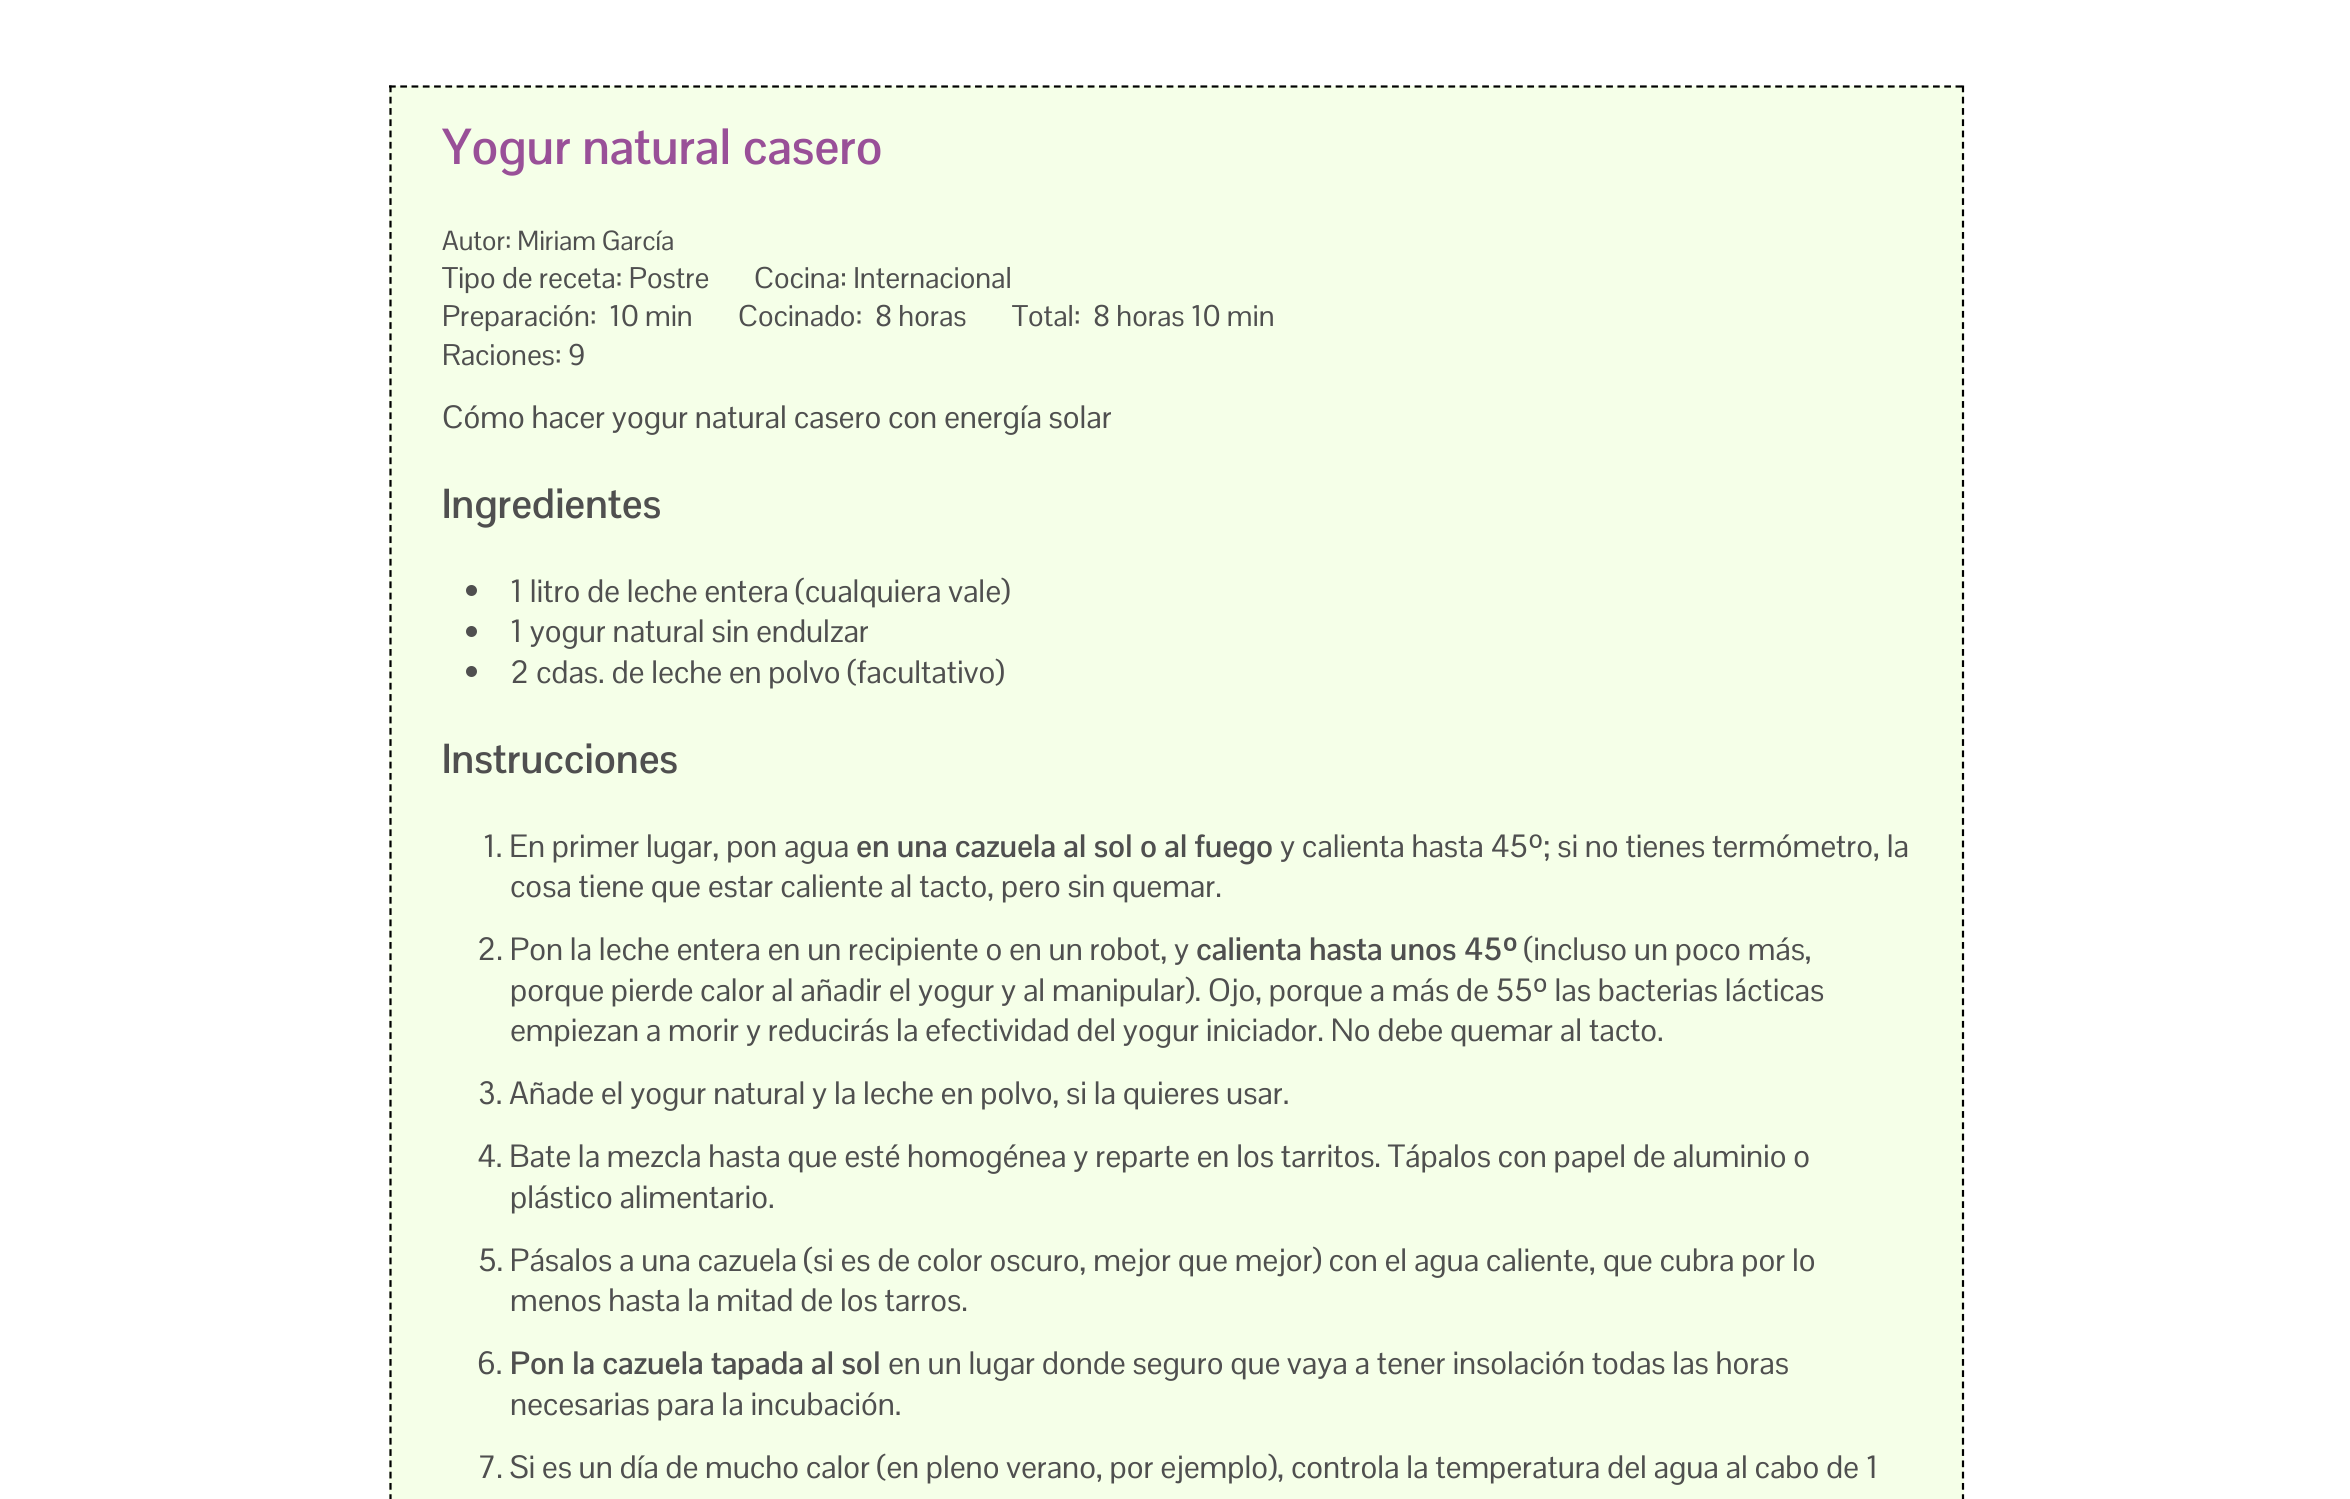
#include <cairo.h>
#include <math.h>
#include <stddef.h>


static void rgb(cairo_t *cr, int r, int g, int b)
{
	cairo_set_source_rgb(cr, r / 255.0, g / 255.0, b / 255.0);
}

static void face(cairo_t *cr, const char *family, double size, int italic, int bold)
{
	cairo_select_font_face(cr, family, italic ? CAIRO_FONT_SLANT_ITALIC : CAIRO_FONT_SLANT_NORMAL,
		bold ? CAIRO_FONT_WEIGHT_BOLD : CAIRO_FONT_WEIGHT_NORMAL);
	cairo_set_font_size(cr, size);
}

static void label(cairo_t *cr, double x, double y, const char *s)
{
	cairo_move_to(cr, x, y);
	cairo_show_text(cr, s);
}

static void rect(cairo_t *cr, double x, double y, double w, double h)
{
	cairo_rectangle(cr, x, y, w, h);
	cairo_fill(cr);
}

static void draw(cairo_t *cr) {
	rgb(cr, 255, 255, 255);
	cairo_paint(cr);
	rgb(cr, 245, 255, 232);
	rect(cr, 389, 86, 1575, 1413);
	cairo_new_path(cr);
	cairo_move_to(cr, 389, 86.5);
	cairo_line_to(cr, 1964, 86.5);
	rgb(cr, 0, 0, 0);
	cairo_set_line_width(cr, 2.2);
	cairo_set_dash(cr, (double[]){6.75, 4.52}, 2, 0);
	cairo_stroke(cr);
	cairo_new_path(cr);
	cairo_move_to(cr, 1963, 85.5);
	cairo_line_to(cr, 1963, 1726);
	cairo_stroke(cr);
	cairo_new_path(cr);
	cairo_move_to(cr, 390.5, 85.5);
	cairo_line_to(cr, 390.5, 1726);
	cairo_stroke(cr);
	face(cr, "Pontano Sans", 49.5, 0, 1);
	rgb(cr, 153, 80, 152);
	label(cr, 442, 164, "Yogur natural casero");
	face(cr, "Pontano Sans", 27, 0, 0);
	rgb(cr, 79, 79, 79);
	label(cr, 442, 250, "Autor: Miriam García");
	face(cr, "Pontano Sans", 29.25, 0, 0);
	label(cr, 442, 288, "Tipo de receta: Postre");
	label(cr, 754, 288, "Cocina: Internacional");
	label(cr, 442, 326, "Preparación:");
	label(cr, 609, 326, "10 min");
	label(cr, 738, 326, "Cocinado:");
	label(cr, 875, 326, "8 horas");
	label(cr, 1012, 326, "Total:");
	label(cr, 1093, 326, "8 horas 10 min");
	label(cr, 442, 365, "Raciones: 9");
	face(cr, "Pontano Sans", 31.5, 0, 0);
	label(cr, 442, 428, "Cómo hacer yogur natural casero con energía solar");
	face(cr, "Pontano Sans", 41, 0, 1);
	label(cr, 442, 518, "Ingredientes");
	cairo_new_path(cr);
	cairo_arc(cr, 471.5, 590.5, 5.5, 0, 2 * M_PI);
	cairo_fill(cr);
	face(cr, "Pontano Sans", 31.5, 0, 0);
	label(cr, 510, 602, "1 litro de leche entera (cualquiera vale)");
	cairo_new_path(cr);
	cairo_arc(cr, 471.5, 631.5, 5.5, 0, 2 * M_PI);
	cairo_fill(cr);
	label(cr, 510, 642, "1 yogur natural sin endulzar");
	cairo_new_path(cr);
	cairo_arc(cr, 471.5, 671.5, 5.5, 0, 2 * M_PI);
	cairo_fill(cr);
	label(cr, 510, 683, "2 cdas. de leche en polvo (facultativo)");
	face(cr, "Pontano Sans", 41, 0, 1);
	label(cr, 442, 773, "Instrucciones");
	face(cr, "Pontano Sans", 31.5, 0, 0);
	label(cr, 483, 857, "1. En primer lugar, pon agua");
	face(cr, "Pontano Sans", 31.5, 0, 1);
	label(cr, 856, 857, "en una cazuela al sol o al fuego");
	face(cr, "Pontano Sans", 31.5, 0, 0);
	label(cr, 1280, 857, "y calienta hasta 45º; si no tienes termómetro, la");
	label(cr, 510, 897, "cosa tiene que estar caliente al tacto, pero sin quemar.");
	label(cr, 477, 960, "2. Pon la leche entera en un recipiente o en un robot, y");
	face(cr, "Pontano Sans", 31.5, 0, 1);
	label(cr, 1196, 960, "calienta hasta unos 45º");
	face(cr, "Pontano Sans", 31.5, 0, 0);
	label(cr, 1524, 960, "(incluso un poco más,");
	label(cr, 510, 1001, "porque pierde calor al añadir el yogur y al manipular). Ojo, porque a más de 55º las bacterias lácticas");
	label(cr, 510, 1041, "empiezan a morir y reducirás la efectividad del yogur iniciador. No debe quemar al tacto.");
	label(cr, 478, 1104, "3. Añade el yogur natural y la leche en polvo, si la quieres usar.");
	label(cr, 477, 1167, "4. Bate la mezcla hasta que esté homogénea y reparte en los tarritos. Tápalos con papel de aluminio o");
	label(cr, 510, 1208, "plástico alimentario.");
	label(cr, 478, 1271, "5. Pásalos a una cazuela (si es de color oscuro, mejor que mejor) con el agua caliente, que cubra por lo");
	label(cr, 510, 1311, "menos hasta la mitad de los tarros.");
	label(cr, 477, 1374, "6.");
	face(cr, "Pontano Sans", 31.5, 0, 1);
	label(cr, 510, 1374, "Pon la cazuela tapada al sol");
	face(cr, "Pontano Sans", 31.5, 0, 0);
	label(cr, 888, 1374, "en un lugar donde seguro que vaya a tener insolación todas las horas");
	label(cr, 510, 1415, "necesarias para la incubación.");
	label(cr, 477, 1478, "7. Si es un día de mucho calor (en pleno verano, por ejemplo), controla la temperatura del agua al cabo de 1");
}

int main(void) {
	cairo_surface_t *surface = cairo_image_surface_create(CAIRO_FORMAT_RGB24, 2350, 1499);
	cairo_t *cr = cairo_create(surface);
	cairo_font_options_t *options = cairo_font_options_create();
	cairo_font_options_set_hint_metrics(options, CAIRO_HINT_METRICS_OFF);
	cairo_font_options_set_hint_style(options, CAIRO_HINT_STYLE_NONE);
	cairo_set_font_options(cr, options);
	cairo_set_miter_limit(cr, 4);
	draw(cr);
	cairo_surface_write_to_png(surface, "render.png");
	cairo_font_options_destroy(options);
	cairo_destroy(cr);
	cairo_surface_destroy(surface);
	return 0;
}
